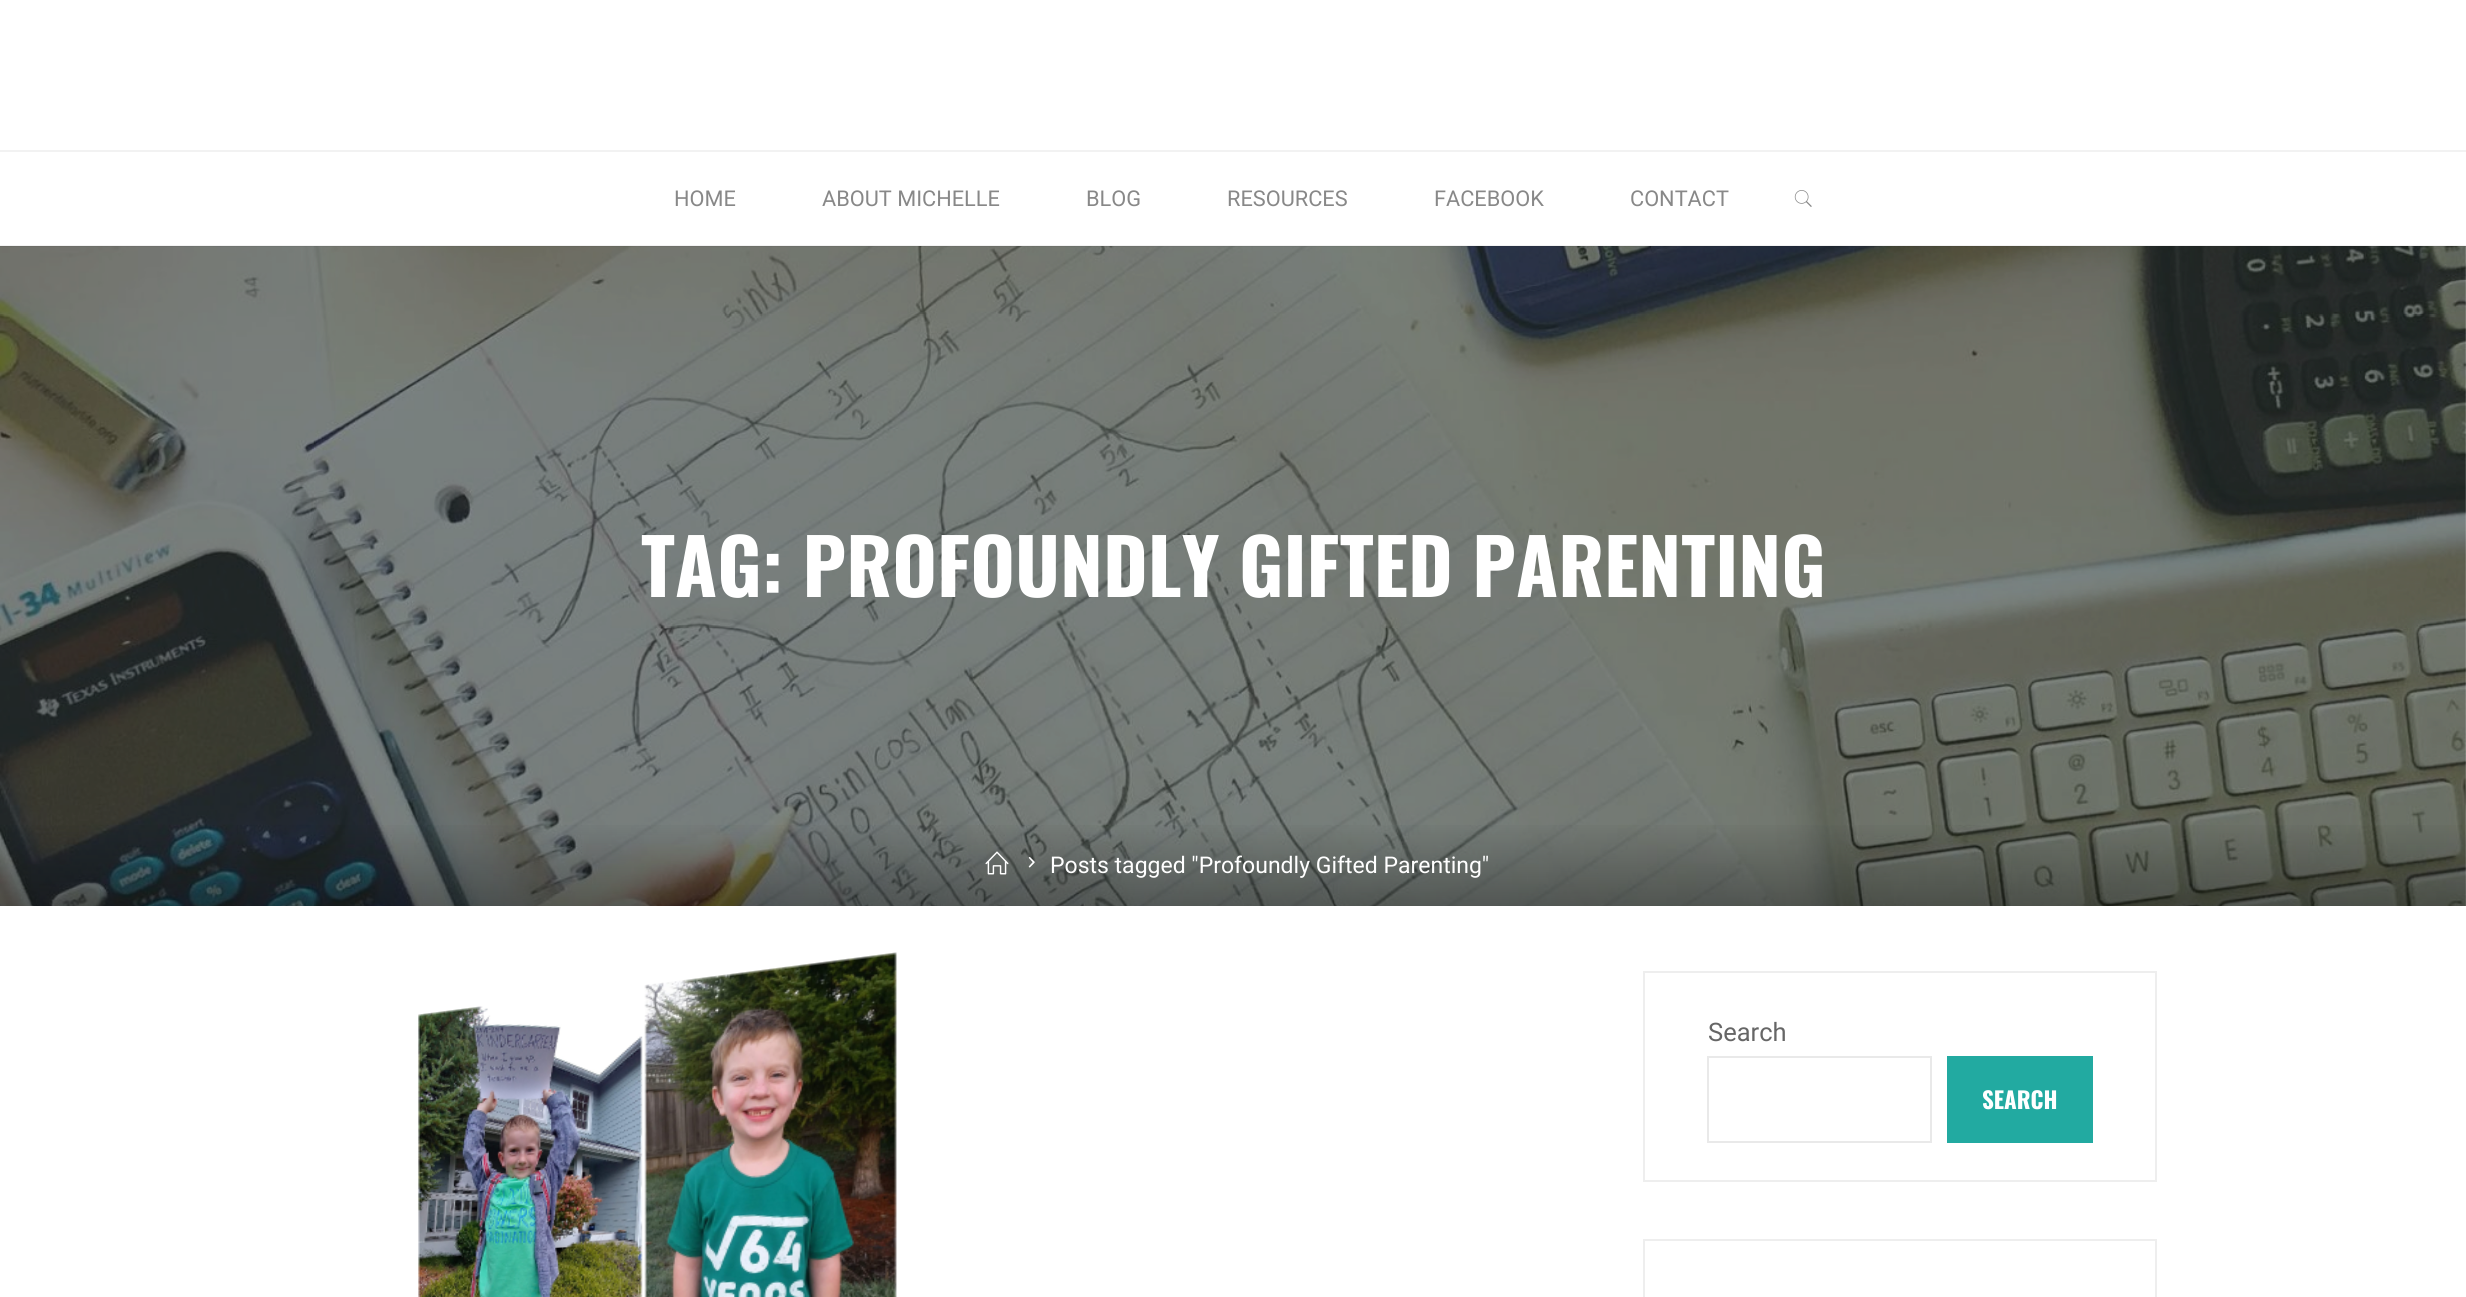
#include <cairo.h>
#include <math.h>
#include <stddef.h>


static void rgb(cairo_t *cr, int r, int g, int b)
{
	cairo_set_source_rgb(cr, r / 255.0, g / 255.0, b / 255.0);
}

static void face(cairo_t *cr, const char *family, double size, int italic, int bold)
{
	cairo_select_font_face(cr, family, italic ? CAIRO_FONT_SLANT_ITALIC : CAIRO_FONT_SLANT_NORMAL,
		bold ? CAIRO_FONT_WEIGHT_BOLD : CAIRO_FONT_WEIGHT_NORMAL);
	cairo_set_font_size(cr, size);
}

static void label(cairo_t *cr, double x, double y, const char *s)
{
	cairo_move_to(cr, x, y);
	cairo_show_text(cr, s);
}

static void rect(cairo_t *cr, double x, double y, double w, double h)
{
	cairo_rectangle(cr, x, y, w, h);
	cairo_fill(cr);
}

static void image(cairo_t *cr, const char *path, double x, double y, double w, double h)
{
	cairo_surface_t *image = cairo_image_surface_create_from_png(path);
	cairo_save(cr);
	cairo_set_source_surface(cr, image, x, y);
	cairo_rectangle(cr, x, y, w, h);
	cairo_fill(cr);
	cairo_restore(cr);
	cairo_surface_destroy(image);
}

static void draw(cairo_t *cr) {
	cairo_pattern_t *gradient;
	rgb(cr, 255, 255, 255);
	cairo_paint(cr);
	rgb(cr, 242, 242, 242);
	rect(cr, 0, 150, 2466, 2);
	image(cr, "image1.png", 0, 246, 2466, 660);
	cairo_set_source_rgba(cr, 0, 0, 0, 0.05);
	rect(cr, 0, 245, 2466, 2);
	face(cr, "Roboto", 21.75, 0, 0);
	rgb(cr, 136, 136, 136);
	label(cr, 674, 206, "HOME");
	label(cr, 822, 206, "ABOUT MICHELLE");
	label(cr, 1086, 206, "BLOG");
	label(cr, 1227, 206, "RESOURCES");
	label(cr, 1434, 206, "FACEBOOK");
	label(cr, 1630, 206, "CONTACT");
	image(cr, "image0.png", 1794, 190, 18, 17);
	face(cr, "Oswald", 76.5, 0, 1);
	rgb(cr, 255, 255, 255);
	label(cr, 641, 597, "TAG: PROFOUNDLY GIFTED PARENTING");
	gradient = cairo_pattern_create_linear(1233, 819, 1233, 906);
	cairo_pattern_add_color_stop_rgba(gradient, 0, 0, 0, 0, 0);
	cairo_pattern_add_color_stop_rgba(gradient, 1, 0, 0, 0, 0.3);
	cairo_set_source(cr, gradient);
	cairo_pattern_destroy(gradient);
	rect(cr, 0, 825, 2466, 81);
	image(cr, "image2.png", 985, 851, 24, 24);
	image(cr, "image3.png", 1028, 857, 7, 11);
	face(cr, "Roboto", 23, 0, 0);
	rgb(cr, 255, 255, 255);
	label(cr, 1050, 873, "Posts tagged \"Profoundly Gifted Parenting\"");
	image(cr, "image4.png", 418, 952, 479, 345);
	cairo_rectangle(cr, 1644, 972, 512, 209);
	rgb(cr, 238, 238, 238);
	cairo_stroke(cr);
	face(cr, "Roboto", 25.5, 0, 0);
	rgb(cr, 102, 102, 102);
	label(cr, 1708, 1041, "Search");
	cairo_rectangle(cr, 1708, 1057, 223, 85);
	rgb(cr, 233, 233, 233);
	cairo_stroke(cr);
	rgb(cr, 34, 170, 161);
	rect(cr, 1947, 1056, 146, 87);
	face(cr, "Oswald", 23, 0, 1);
	rgb(cr, 255, 255, 255);
	label(cr, 1982, 1109, "SEARCH");
	cairo_rectangle(cr, 1644, 1240, 512, 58);
	rgb(cr, 238, 238, 238);
	cairo_stroke(cr);
}

int main(void) {
	cairo_surface_t *surface = cairo_image_surface_create(CAIRO_FORMAT_RGB24, 2466, 1297);
	cairo_t *cr = cairo_create(surface);
	cairo_font_options_t *options = cairo_font_options_create();
	cairo_font_options_set_hint_metrics(options, CAIRO_HINT_METRICS_OFF);
	cairo_font_options_set_hint_style(options, CAIRO_HINT_STYLE_NONE);
	cairo_set_font_options(cr, options);
	cairo_set_miter_limit(cr, 4);
	draw(cr);
	cairo_surface_write_to_png(surface, "render.png");
	cairo_font_options_destroy(options);
	cairo_destroy(cr);
	cairo_surface_destroy(surface);
	return 0;
}
